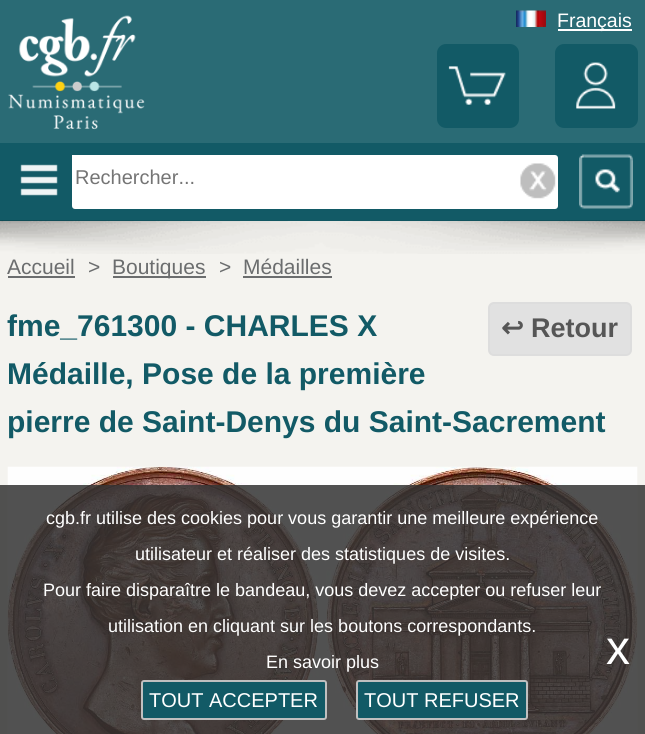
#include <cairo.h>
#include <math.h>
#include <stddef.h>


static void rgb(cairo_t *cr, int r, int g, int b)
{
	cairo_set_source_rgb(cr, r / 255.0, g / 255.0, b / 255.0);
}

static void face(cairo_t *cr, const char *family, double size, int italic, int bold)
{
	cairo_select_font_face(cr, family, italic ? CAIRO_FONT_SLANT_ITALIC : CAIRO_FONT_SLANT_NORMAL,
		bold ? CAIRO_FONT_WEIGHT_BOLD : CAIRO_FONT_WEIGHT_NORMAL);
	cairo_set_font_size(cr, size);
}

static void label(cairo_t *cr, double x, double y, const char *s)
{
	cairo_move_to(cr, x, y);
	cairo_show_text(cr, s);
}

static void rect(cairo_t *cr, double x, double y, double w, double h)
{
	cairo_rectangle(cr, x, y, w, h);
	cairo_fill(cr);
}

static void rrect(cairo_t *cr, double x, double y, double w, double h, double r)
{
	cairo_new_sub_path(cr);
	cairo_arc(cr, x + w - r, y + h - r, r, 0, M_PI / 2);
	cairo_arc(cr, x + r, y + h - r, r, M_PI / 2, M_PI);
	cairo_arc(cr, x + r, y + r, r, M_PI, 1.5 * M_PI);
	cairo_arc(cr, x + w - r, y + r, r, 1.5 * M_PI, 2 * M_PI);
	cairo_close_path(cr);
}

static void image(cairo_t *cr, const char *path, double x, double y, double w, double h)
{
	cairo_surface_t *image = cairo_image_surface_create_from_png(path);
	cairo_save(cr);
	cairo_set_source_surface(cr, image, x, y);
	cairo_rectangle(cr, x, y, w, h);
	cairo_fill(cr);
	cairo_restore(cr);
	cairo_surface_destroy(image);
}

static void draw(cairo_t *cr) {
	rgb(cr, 42, 107, 117);
	cairo_paint(cr);
	image(cr, "image0.png", 8, 15, 137, 115);
	image(cr, "image1.png", 516, 10, 30, 17);
	rgb(cr, 255, 255, 255);
	rect(cr, 558, 29, 74, 2);
	face(cr, "Liberation Sans", 19.5, 0, 0);
	label(cr, 557, 27, "Français");
	rgb(cr, 18, 90, 102);
	rrect(cr, 437, 44, 82, 84, 9);
	cairo_fill(cr);
	image(cr, "image2.png", 448, 66, 58, 39);
	rrect(cr, 555, 44, 83, 84, 9);
	cairo_fill(cr);
	image(cr, "image3.png", 576, 62, 40, 47);
	rect(cr, 0, 143, 645, 78);
	image(cr, "image4.png", 20, 164, 38, 32);
	rgb(cr, 255, 255, 255);
	rrect(cr, 72, 155, 486, 54, 3);
	cairo_fill(cr);
	rect(cr, 72, 155, 3, 3);
	face(cr, "Liberation Sans", 20, 0, 0);
	rgb(cr, 117, 117, 117);
	label(cr, 75, 184, "Rechercher...");
	image(cr, "image5.png", 520, 163, 36, 36);
	image(cr, "image6.png", 579, 154, 54, 55);
	rgb(cr, 244, 243, 239);
	rect(cr, 0, 221, 645, 264);
	rgb(cr, 80, 80, 79);
	rect(cr, 0, 485, 645, 249);
	image(cr, "image7.png", 0, 220, 645, 34);
	face(cr, "Liberation Sans", 21, 0, 0);
	rgb(cr, 107, 109, 110);
	label(cr, 7, 274, "Accueil");
	rect(cr, 8, 276, 67, 2);
	label(cr, 88, 274, ">");
	rect(cr, 113, 276, 93, 2);
	label(cr, 112, 274, "Boutiques");
	label(cr, 219, 274, ">");
	label(cr, 243, 274, "Médailles");
	rect(cr, 243, 276, 89, 2);
	face(cr, "Liberation Sans", 30, 0, 1);
	rgb(cr, 18, 90, 102);
	label(cr, 7, 336, "fme_761300 - CHARLES X");
	label(cr, 7, 384, "Médaille, Pose de la première");
	label(cr, 7, 432, "pierre de Saint-Denys du Saint-Sacrement");
	rgb(cr, 225, 225, 225);
	rrect(cr, 489, 303, 142, 52, 5);
	cairo_fill_preserve(cr);
	rgb(cr, 221, 221, 221);
	cairo_stroke(cr);
	face(cr, "DejaVu Sans", 27, 0, 1);
	rgb(cr, 86, 86, 86);
	label(cr, 501, 337, "↩");
	face(cr, "Liberation Sans", 27, 0, 1);
	label(cr, 531, 337, "Retour");
	image(cr, "image8.png", 7, 466, 631, 268);
	face(cr, "Liberation Sans", 18, 0, 0);
	rgb(cr, 255, 255, 255);
	label(cr, 46, 524, "cgb.fr utilise des cookies pour vous garantir une meilleure expérience");
	label(cr, 135, 560, "utilisateur et réaliser des statistiques de visites.");
	label(cr, 43, 596, "Pour faire disparaître le bandeau, vous devez accepter ou refuser leur");
	label(cr, 108, 632, "utilisation en cliquant sur les boutons correspondants.");
	label(cr, 266, 668, "En savoir plus");
	face(cr, "Liberation Sans", 48, 0, 0);
	label(cr, 606, 664, "x");
	rgb(cr, 18, 90, 102);
	rrect(cr, 142, 681, 184, 38, 2);
	cairo_fill_preserve(cr);
	rgb(cr, 192, 192, 192);
	cairo_stroke(cr);
	face(cr, "Liberation Sans", 20, 0, 0);
	rgb(cr, 255, 255, 255);
	label(cr, 149, 707, "TOUT ACCEPTER");
	rgb(cr, 18, 90, 102);
	rrect(cr, 357, 681, 170, 38, 2);
	cairo_fill_preserve(cr);
	rgb(cr, 192, 192, 192);
	cairo_stroke(cr);
	rgb(cr, 255, 255, 255);
	label(cr, 364, 707, "TOUT REFUSER");
}

int main(void) {
	cairo_surface_t *surface = cairo_image_surface_create(CAIRO_FORMAT_RGB24, 645, 734);
	cairo_t *cr = cairo_create(surface);
	cairo_font_options_t *options = cairo_font_options_create();
	cairo_font_options_set_hint_metrics(options, CAIRO_HINT_METRICS_OFF);
	cairo_font_options_set_hint_style(options, CAIRO_HINT_STYLE_NONE);
	cairo_set_font_options(cr, options);
	cairo_set_miter_limit(cr, 4);
	draw(cr);
	cairo_surface_write_to_png(surface, "render.png");
	cairo_font_options_destroy(options);
	cairo_destroy(cr);
	cairo_surface_destroy(surface);
	return 0;
}
